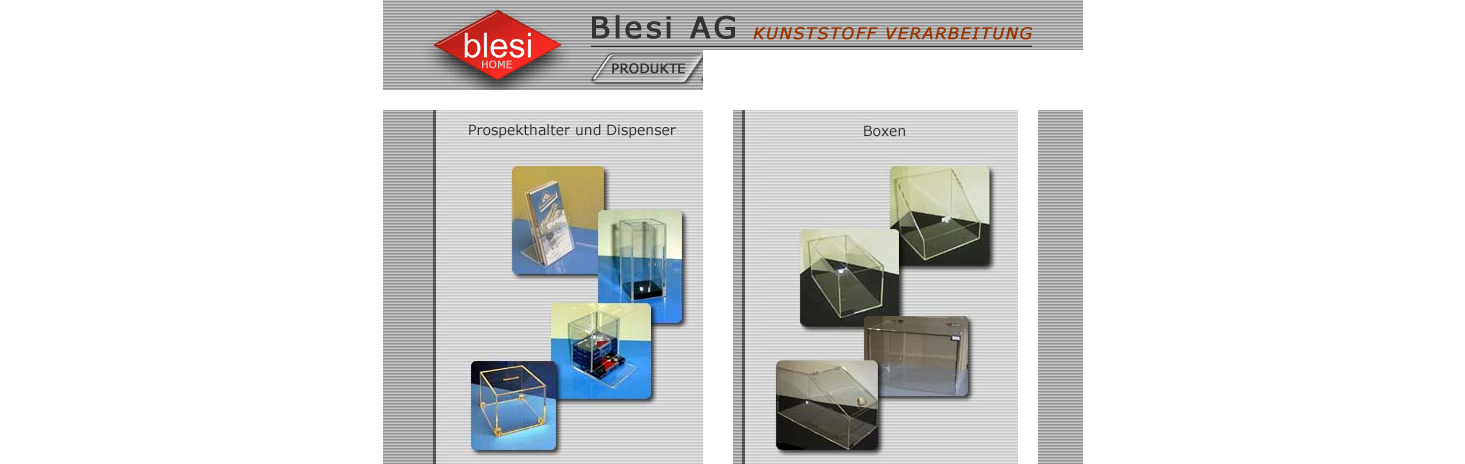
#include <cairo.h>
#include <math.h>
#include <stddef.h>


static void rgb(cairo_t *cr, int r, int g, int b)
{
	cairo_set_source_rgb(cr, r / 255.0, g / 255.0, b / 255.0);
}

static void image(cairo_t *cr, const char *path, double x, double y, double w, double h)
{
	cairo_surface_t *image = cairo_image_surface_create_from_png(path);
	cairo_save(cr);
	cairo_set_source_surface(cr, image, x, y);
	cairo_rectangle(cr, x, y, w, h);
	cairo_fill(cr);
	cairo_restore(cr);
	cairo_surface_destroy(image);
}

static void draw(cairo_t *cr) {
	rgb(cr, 255, 255, 255);
	cairo_paint(cr);
	image(cr, "image0.png", 383, 0, 65, 50);
	image(cr, "image1.png", 448, 0, 140, 50);
	image(cr, "image2.png", 588, 0, 115, 50);
	image(cr, "image3.png", 703, 0, 110, 50);
	image(cr, "image4.png", 813, 0, 110, 50);
	image(cr, "image5.png", 923, 0, 115, 50);
	image(cr, "image6.png", 1038, 0, 45, 50);
	image(cr, "image7.png", 383, 50, 65, 40);
	image(cr, "image8.png", 448, 50, 140, 40);
	image(cr, "image9.png", 588, 50, 115, 40);
	image(cr, "image10.png", 383, 110, 45, 354);
	image(cr, "image11.png", 428, 110, 20, 354);
	image(cr, "image12.png", 448, 110, 255, 354);
	image(cr, "image13.png", 733, 110, 30, 354);
	image(cr, "image14.png", 763, 110, 255, 354);
	image(cr, "image10.png", 1038, 110, 45, 354);
}

int main(void) {
	cairo_surface_t *surface = cairo_image_surface_create(CAIRO_FORMAT_RGB24, 1465, 464);
	cairo_t *cr = cairo_create(surface);
	cairo_font_options_t *options = cairo_font_options_create();
	cairo_font_options_set_hint_metrics(options, CAIRO_HINT_METRICS_OFF);
	cairo_font_options_set_hint_style(options, CAIRO_HINT_STYLE_NONE);
	cairo_set_font_options(cr, options);
	cairo_set_miter_limit(cr, 4);
	draw(cr);
	cairo_surface_write_to_png(surface, "render.png");
	cairo_font_options_destroy(options);
	cairo_destroy(cr);
	cairo_surface_destroy(surface);
	return 0;
}
